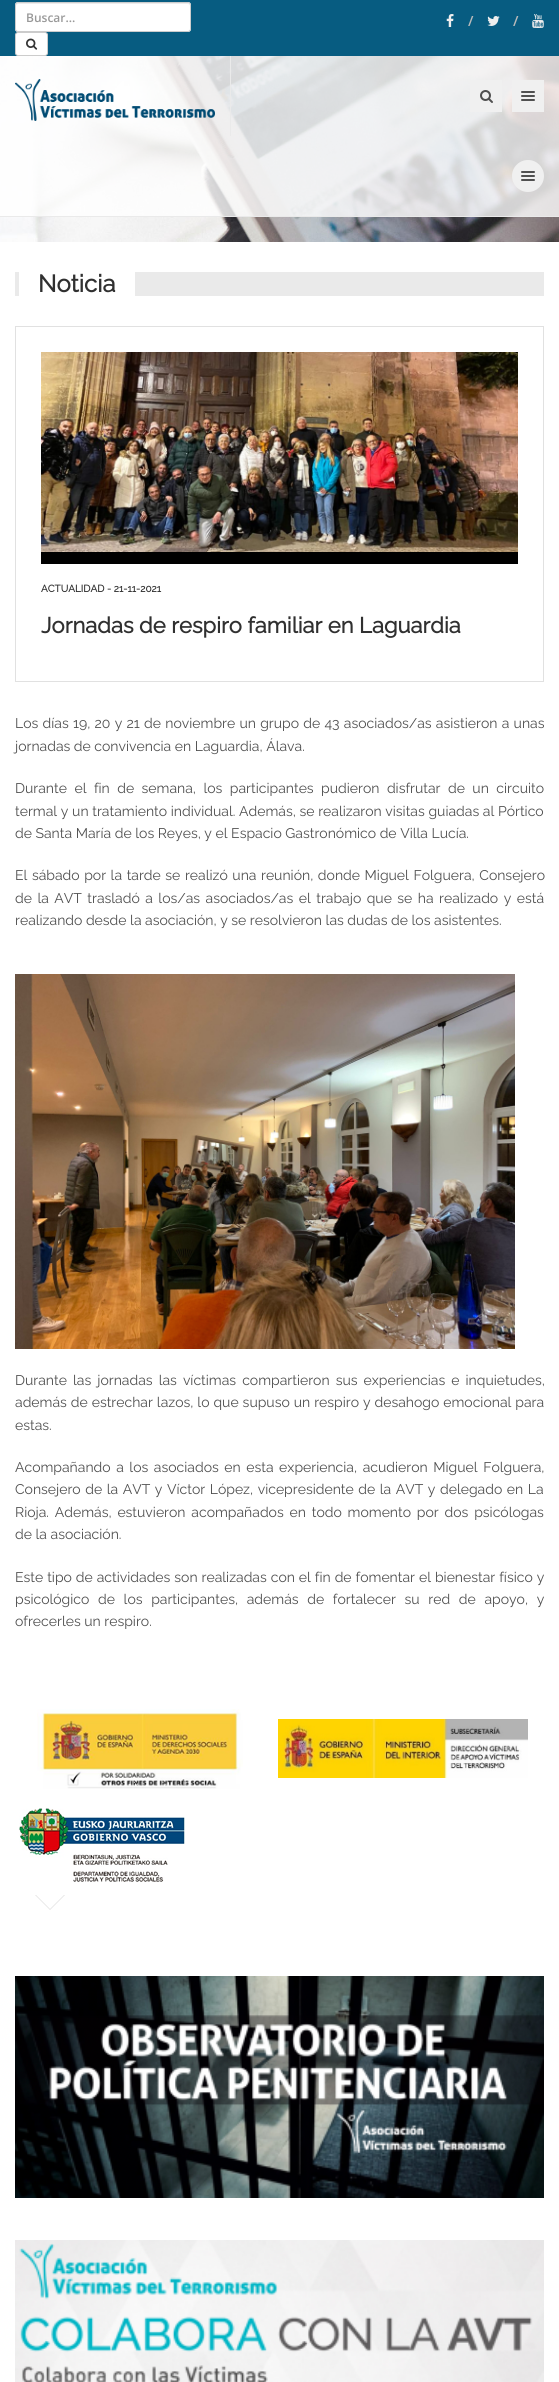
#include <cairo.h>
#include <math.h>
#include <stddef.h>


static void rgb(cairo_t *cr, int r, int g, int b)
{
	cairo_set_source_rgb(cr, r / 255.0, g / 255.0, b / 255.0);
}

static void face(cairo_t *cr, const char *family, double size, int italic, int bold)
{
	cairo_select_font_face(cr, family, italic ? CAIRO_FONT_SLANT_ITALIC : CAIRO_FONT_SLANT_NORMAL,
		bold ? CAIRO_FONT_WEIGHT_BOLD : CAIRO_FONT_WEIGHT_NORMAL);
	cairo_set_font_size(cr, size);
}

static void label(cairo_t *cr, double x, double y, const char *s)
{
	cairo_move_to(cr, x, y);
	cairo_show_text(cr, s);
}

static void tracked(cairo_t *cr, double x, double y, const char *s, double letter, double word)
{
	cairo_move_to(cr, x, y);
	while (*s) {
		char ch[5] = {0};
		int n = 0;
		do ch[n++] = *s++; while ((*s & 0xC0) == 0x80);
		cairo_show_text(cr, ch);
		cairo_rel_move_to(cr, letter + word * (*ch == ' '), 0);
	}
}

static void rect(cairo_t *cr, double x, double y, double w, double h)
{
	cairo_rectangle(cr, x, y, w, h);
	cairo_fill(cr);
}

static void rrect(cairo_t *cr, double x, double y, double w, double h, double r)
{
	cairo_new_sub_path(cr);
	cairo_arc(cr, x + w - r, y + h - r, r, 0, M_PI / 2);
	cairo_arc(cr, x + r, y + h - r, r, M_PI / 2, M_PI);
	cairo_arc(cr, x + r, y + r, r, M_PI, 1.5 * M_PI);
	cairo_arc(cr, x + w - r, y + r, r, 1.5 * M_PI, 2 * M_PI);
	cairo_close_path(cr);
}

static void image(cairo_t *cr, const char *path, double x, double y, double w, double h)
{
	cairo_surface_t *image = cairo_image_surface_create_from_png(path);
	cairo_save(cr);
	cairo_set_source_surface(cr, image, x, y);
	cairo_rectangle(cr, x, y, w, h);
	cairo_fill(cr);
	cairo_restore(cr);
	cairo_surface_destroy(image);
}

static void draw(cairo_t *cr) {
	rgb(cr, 255, 255, 255);
	cairo_paint(cr);
	rgb(cr, 7, 92, 129);
	rect(cr, 0, 0, 559, 56);
	image(cr, "image0.png", 0, 56, 559, 186);
	cairo_set_source_rgba(cr, 1, 1, 1, 0.79);
	rect(cr, 0, 56, 559, 160);
	rgb(cr, 234, 234, 234);
	rect(cr, 0, 216, 559, 1);
	rgb(cr, 255, 255, 255);
	rrect(cr, 15, 2, 176, 30, 3);
	cairo_fill(cr);
	rgb(cr, 236, 236, 236);
	cairo_new_path(cr);
	cairo_move_to(cr, 18, 4);
	cairo_line_to(cr, 188, 4);
	cairo_curve_to(cr, 189, 4, 190, 5, 190, 6);
	cairo_curve_to(cr, 190, 5, 190, 3, 188, 3);
	cairo_line_to(cr, 17, 3);
	cairo_curve_to(cr, 16, 4, 16, 5, 16, 6);
	cairo_curve_to(cr, 16, 5, 17, 4, 18, 4);
	cairo_close_path(cr);
	cairo_fill(cr);
	rrect(cr, 15.5, 2.5, 175, 29, 2.5);
	rgb(cr, 204, 204, 204);
	cairo_set_line_width(cr, 1);
	cairo_stroke(cr);
	face(cr, "Open Sans SemiBold", 12, 0, 0);
	rgb(cr, 153, 153, 153);
	label(cr, 26, 22, "Buscar...");
	rgb(cr, 255, 255, 255);
	rrect(cr, 15.5, 32.5, 32, 23, 2.5);
	cairo_fill_preserve(cr);
	rgb(cr, 204, 204, 204);
	cairo_stroke(cr);
	image(cr, "image1.png", 26, 38, 12, 12);
	image(cr, "image2.png", 446, 14, 8, 13);
	face(cr, "Open Sans SemiBold", 14, 0, 0);
	rgb(cr, 186, 186, 186);
	label(cr, 468, 26, "/");
	image(cr, "image3.png", 487, 16, 13, 10);
	label(cr, 513, 26, "/");
	image(cr, "image4.png", 532, 14, 12, 14);
	rgb(cr, 234, 234, 234);
	rect(cr, 230, 56, 1, 80);
	image(cr, "image5.png", 15, 79, 200, 42);
	rgb(cr, 240, 240, 240);
	rect(cr, 470, 80, 32, 32);
	image(cr, "image6.png", 480, 90, 13, 13);
	rect(cr, 512, 80, 32, 32);
	rgb(cr, 80, 80, 80);
	rrect(cr, 521, 95, 14, 2, 1);
	cairo_fill(cr);
	rrect(cr, 521, 91, 14, 2, 1);
	cairo_fill(cr);
	rrect(cr, 521, 99, 14, 2, 1);
	cairo_fill(cr);
	rgb(cr, 240, 240, 240);
	cairo_arc(cr, 528, 176, 16, 0, 2 * M_PI);
	cairo_fill(cr);
	rgb(cr, 80, 80, 80);
	rrect(cr, 521, 175, 14, 2, 1);
	cairo_fill(cr);
	rrect(cr, 521, 171, 14, 2, 1);
	cairo_fill(cr);
	rrect(cr, 521, 179, 14, 2, 1);
	cairo_fill(cr);
	rgb(cr, 234, 234, 234);
	rect(cr, 15, 272, 529, 24);
	rgb(cr, 255, 255, 255);
	rect(cr, 19, 272, 116, 24);
	face(cr, "Raleway", 24, 0, 1);
	rgb(cr, 48, 48, 48);
	label(cr, 38, 292, "Noticia");
	cairo_rectangle(cr, 15.5, 326.5, 528, 355);
	rgb(cr, 225, 225, 225);
	cairo_stroke(cr);
	rgb(cr, 0, 0, 0);
	rect(cr, 41, 431, 477, 133);
	image(cr, "image7.png", 41, 352, 477, 200);
	face(cr, "Raleway", 10, 0, 1);
	rgb(cr, 48, 48, 48);
	label(cr, 41, 592, "ACTUALIDAD - 21-11-2021");
	face(cr, "Raleway", 22, 0, 1);
	label(cr, 41, 633, "Jornadas de respiro familiar en Laguardia");
	rgb(cr, 225, 225, 225);
	cairo_new_path(cr);
	cairo_move_to(cr, 35, 1895);
	cairo_line_to(cr, 65, 1895);
	cairo_line_to(cr, 50, 1910);
	cairo_close_path(cr);
	cairo_fill(cr);
	rgb(cr, 255, 255, 255);
	cairo_new_path(cr);
	cairo_move_to(cr, 35, 1894);
	cairo_line_to(cr, 65, 1894);
	cairo_line_to(cr, 50, 1909);
	cairo_close_path(cr);
	cairo_fill(cr);
	face(cr, "Raleway Thin", 14, 0, 0);
	rgb(cr, 80, 80, 80);
	tracked(cr, 15, 728, "Los días 19, 20 y 21 de noviembre un grupo de 43 asociados/as asistieron a unas", 0, 0.7);
	label(cr, 15, 751, "jornadas de convivencia en Laguardia, Álava.");
	tracked(cr, 15, 793, "Durante el fin de semana, los participantes pudieron disfrutar de un circuito", 0, 3.9);
	tracked(cr, 15, 816, "termal y un tratamiento individual. Además, se realizaron visitas guiadas al Pórtico", 0, 0.1);
	label(cr, 15, 838, "de Santa María de los Reyes, y el Espacio Gastronómico de Villa Lucía.");
	tracked(cr, 15, 880, "El sábado por la tarde se realizó una reunión, donde Miguel Folguera, Consejero", 0, 1);
	tracked(cr, 15, 903, "de la AVT trasladó a los/as asociados/as el trabajo que se ha realizado y está", 0, 1.9);
	label(cr, 15, 925, "realizando desde la asociación, y se resolvieron las dudas de los asistentes.");
	image(cr, "image8.png", 15, 974, 500, 375);
	tracked(cr, 15, 1385, "Durante las jornadas las víctimas compartieron sus experiencias e inquietudes,", 0, 2.5);
	tracked(cr, 15, 1407, "además de estrechar lazos, lo que supuso un respiro y desahogo emocional para", 0, 0.4);
	label(cr, 15, 1430, "estas.");
	tracked(cr, 15, 1472, "Acompañando a los asociados en esta experiencia, acudieron Miguel Folguera,", 0, 2);
	tracked(cr, 15, 1494, "Consejero de la AVT y Víctor López, vicepresidente de la AVT y delegado en La", 0, 1);
	tracked(cr, 15, 1517, "Rioja. Además, estuvieron acompañados en todo momento por dos psicólogas", 0, 2.25);
	label(cr, 15, 1539, "de la asociación.");
	tracked(cr, 15, 1582, "Este tipo de actividades son realizadas con el fin de fomentar el bienestar físico y", 0, 0.4);
	tracked(cr, 15, 1604, "psicológico de los participantes, además de fortalecer su red de apoyo, y", 0, 5.1);
	label(cr, 15, 1626, "ofrecerles un respiro.");
	image(cr, "image9.png", 37, 1709, 206, 80);
	image(cr, "image10.png", 278, 1719, 250, 59);
	image(cr, "image11.png", 19, 1808, 166, 74);
	image(cr, "image12.png", 15, 1976, 529, 222);
	image(cr, "image13.png", 15, 2240, 529, 142);
}

int main(void) {
	cairo_surface_t *surface = cairo_image_surface_create(CAIRO_FORMAT_RGB24, 559, 2382);
	cairo_t *cr = cairo_create(surface);
	cairo_font_options_t *options = cairo_font_options_create();
	cairo_font_options_set_hint_metrics(options, CAIRO_HINT_METRICS_OFF);
	cairo_font_options_set_hint_style(options, CAIRO_HINT_STYLE_NONE);
	cairo_set_font_options(cr, options);
	cairo_set_miter_limit(cr, 4);
	draw(cr);
	cairo_surface_write_to_png(surface, "render.png");
	cairo_font_options_destroy(options);
	cairo_destroy(cr);
	cairo_surface_destroy(surface);
	return 0;
}
